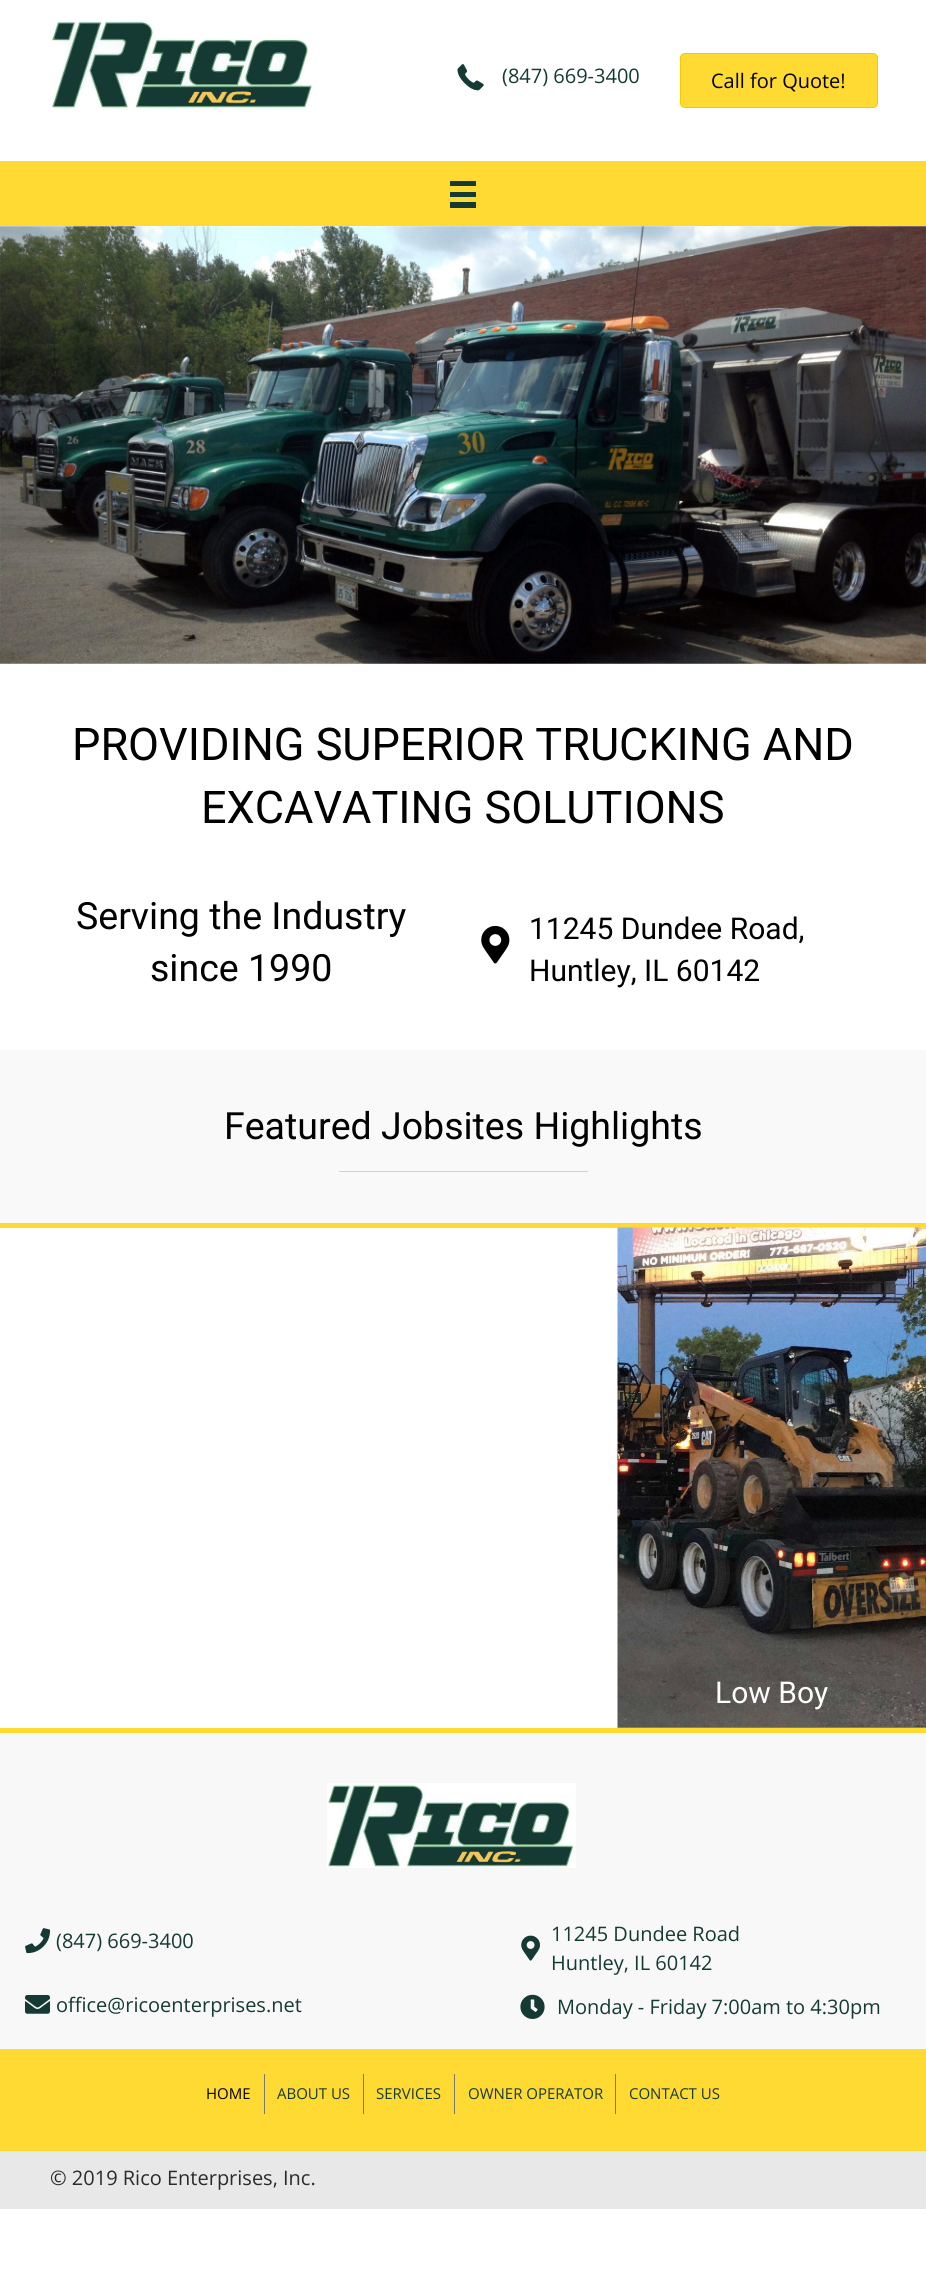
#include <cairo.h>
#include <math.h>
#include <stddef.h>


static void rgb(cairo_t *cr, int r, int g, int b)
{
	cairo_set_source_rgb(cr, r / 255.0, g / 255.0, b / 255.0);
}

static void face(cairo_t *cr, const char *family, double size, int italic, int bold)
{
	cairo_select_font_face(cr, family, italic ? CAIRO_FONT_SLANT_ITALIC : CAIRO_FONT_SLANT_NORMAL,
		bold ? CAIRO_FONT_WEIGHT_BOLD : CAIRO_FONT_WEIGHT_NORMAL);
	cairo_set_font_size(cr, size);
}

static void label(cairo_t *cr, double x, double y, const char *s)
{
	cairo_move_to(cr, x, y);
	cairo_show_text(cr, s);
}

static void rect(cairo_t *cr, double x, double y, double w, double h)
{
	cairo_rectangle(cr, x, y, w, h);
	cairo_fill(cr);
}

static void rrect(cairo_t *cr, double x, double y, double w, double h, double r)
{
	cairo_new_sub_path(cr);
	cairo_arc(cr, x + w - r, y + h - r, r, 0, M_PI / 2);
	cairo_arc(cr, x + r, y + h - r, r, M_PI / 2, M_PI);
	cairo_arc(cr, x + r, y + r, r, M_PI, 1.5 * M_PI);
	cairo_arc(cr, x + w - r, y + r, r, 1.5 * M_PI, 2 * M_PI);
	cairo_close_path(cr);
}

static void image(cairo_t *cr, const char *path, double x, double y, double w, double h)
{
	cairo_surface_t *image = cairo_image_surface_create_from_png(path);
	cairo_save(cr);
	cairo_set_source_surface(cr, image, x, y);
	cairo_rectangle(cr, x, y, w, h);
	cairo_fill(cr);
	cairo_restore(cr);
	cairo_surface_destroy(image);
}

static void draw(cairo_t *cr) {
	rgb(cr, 255, 255, 255);
	cairo_paint(cr);
	image(cr, "image0.png", 52, 20, 260, 89);
	image(cr, "image1.png", 457, 64, 27, 27);
	face(cr, "Open Sans", 20, 0, 0);
	rgb(cr, 21, 58, 51);
	label(cr, 502, 83, "(847) 669-3400");
	rgb(cr, 255, 218, 51);
	rrect(cr, 680.5, 53.5, 197, 54, 4.5);
	cairo_fill_preserve(cr);
	rgb(cr, 245, 200, 0);
	cairo_set_line_width(cr, 1);
	cairo_stroke(cr);
	rgb(cr, 0, 0, 0);
	label(cr, 711, 88, "Call for Quote!");
	rgb(cr, 255, 218, 51);
	rect(cr, 0, 161, 926, 65);
	rgb(cr, 21, 58, 51);
	rect(cr, 450, 181, 26, 5);
	rect(cr, 450, 192, 26, 5);
	rect(cr, 450, 202, 26, 6);
	image(cr, "image2.png", 0, 226, 926, 438);
	face(cr, "Roboto", 45, 0, 0);
	rgb(cr, 0, 0, 0);
	label(cr, 72, 760, "PROVIDING SUPERIOR TRUCKING AND");
	label(cr, 201, 823, "EXCAVATING SOLUTIONS");
	face(cr, "Roboto", 37.5, 0, 0);
	label(cr, 76, 929, "Serving the Industry");
	label(cr, 150, 981, "since 1990");
	image(cr, "image3.png", 481, 925, 29, 39);
	face(cr, "Roboto", 30, 0, 0);
	label(cr, 529, 939, "11245 Dundee Road,");
	label(cr, 529, 981, "Huntley, IL 60142");
	rgb(cr, 249, 249, 249);
	rect(cr, 0, 1050, 926, 173);
	face(cr, "Roboto", 37.5, 0, 0);
	rgb(cr, 0, 0, 0);
	label(cr, 224, 1139, "Featured Jobsites Highlights");
	rgb(cr, 255, 218, 51);
	rect(cr, 339, 1171, 249, 1);
	rect(cr, 0, 1223, 926, 5);
	image(cr, "image4.png", 617, 1227, 309, 501);
	face(cr, "Roboto", 30, 0, 0);
	rgb(cr, 255, 255, 255);
	label(cr, 715, 1703, "Low Boy");
	rgb(cr, 248, 248, 248);
	rect(cr, 0, 1733, 926, 316);
	rgb(cr, 255, 218, 51);
	rect(cr, 0, 1728, 926, 5);
	image(cr, "image5.png", 327, 1783, 249, 85);
	image(cr, "image6.png", 25, 1928, 26, 26);
	face(cr, "Open Sans", 20, 0, 0);
	rgb(cr, 21, 58, 51);
	label(cr, 56, 1948, "(847) 669-3400");
	image(cr, "image7.png", 25, 1995, 25, 19);
	label(cr, 56, 2012, "office@ricoenterprises.net");
	image(cr, "image8.png", 521, 1935, 19, 26);
	label(cr, 551, 1941, "11245 Dundee Road");
	label(cr, 551, 1970, "Huntley, IL 60142");
	image(cr, "image9.png", 520, 1994, 25, 25);
	label(cr, 557, 2014, "Monday - Friday 7:00am to 4:30pm");
	rgb(cr, 255, 218, 51);
	rect(cr, 0, 2049, 926, 102);
	face(cr, "Open Sans", 15, 0, 0);
	rgb(cr, 0, 0, 0);
	label(cr, 206, 2099, "HOME");
	rgb(cr, 119, 119, 119);
	rect(cr, 264, 2074, 1, 40);
	rgb(cr, 21, 58, 51);
	label(cr, 277, 2099, "ABOUT US");
	rgb(cr, 119, 119, 119);
	rect(cr, 363, 2074, 1, 40);
	rgb(cr, 21, 58, 51);
	label(cr, 376, 2099, "SERVICES");
	rgb(cr, 119, 119, 119);
	rect(cr, 454, 2074, 1, 40);
	rgb(cr, 21, 58, 51);
	label(cr, 468, 2099, "OWNER OPERATOR");
	rgb(cr, 119, 119, 119);
	rect(cr, 615, 2074, 1, 40);
	rgb(cr, 21, 58, 51);
	label(cr, 629, 2099, "CONTACT US");
	rgb(cr, 232, 232, 232);
	rect(cr, 0, 2151, 926, 58);
	face(cr, "Open Sans", 20, 0, 0);
	rgb(cr, 43, 43, 43);
	label(cr, 50, 2185, "© 2019 Rico Enterprises, Inc.");
}

int main(void) {
	cairo_surface_t *surface = cairo_image_surface_create(CAIRO_FORMAT_RGB24, 926, 2271);
	cairo_t *cr = cairo_create(surface);
	cairo_font_options_t *options = cairo_font_options_create();
	cairo_font_options_set_hint_metrics(options, CAIRO_HINT_METRICS_OFF);
	cairo_font_options_set_hint_style(options, CAIRO_HINT_STYLE_NONE);
	cairo_set_font_options(cr, options);
	cairo_set_miter_limit(cr, 4);
	draw(cr);
	cairo_surface_write_to_png(surface, "render.png");
	cairo_font_options_destroy(options);
	cairo_destroy(cr);
	cairo_surface_destroy(surface);
	return 0;
}
